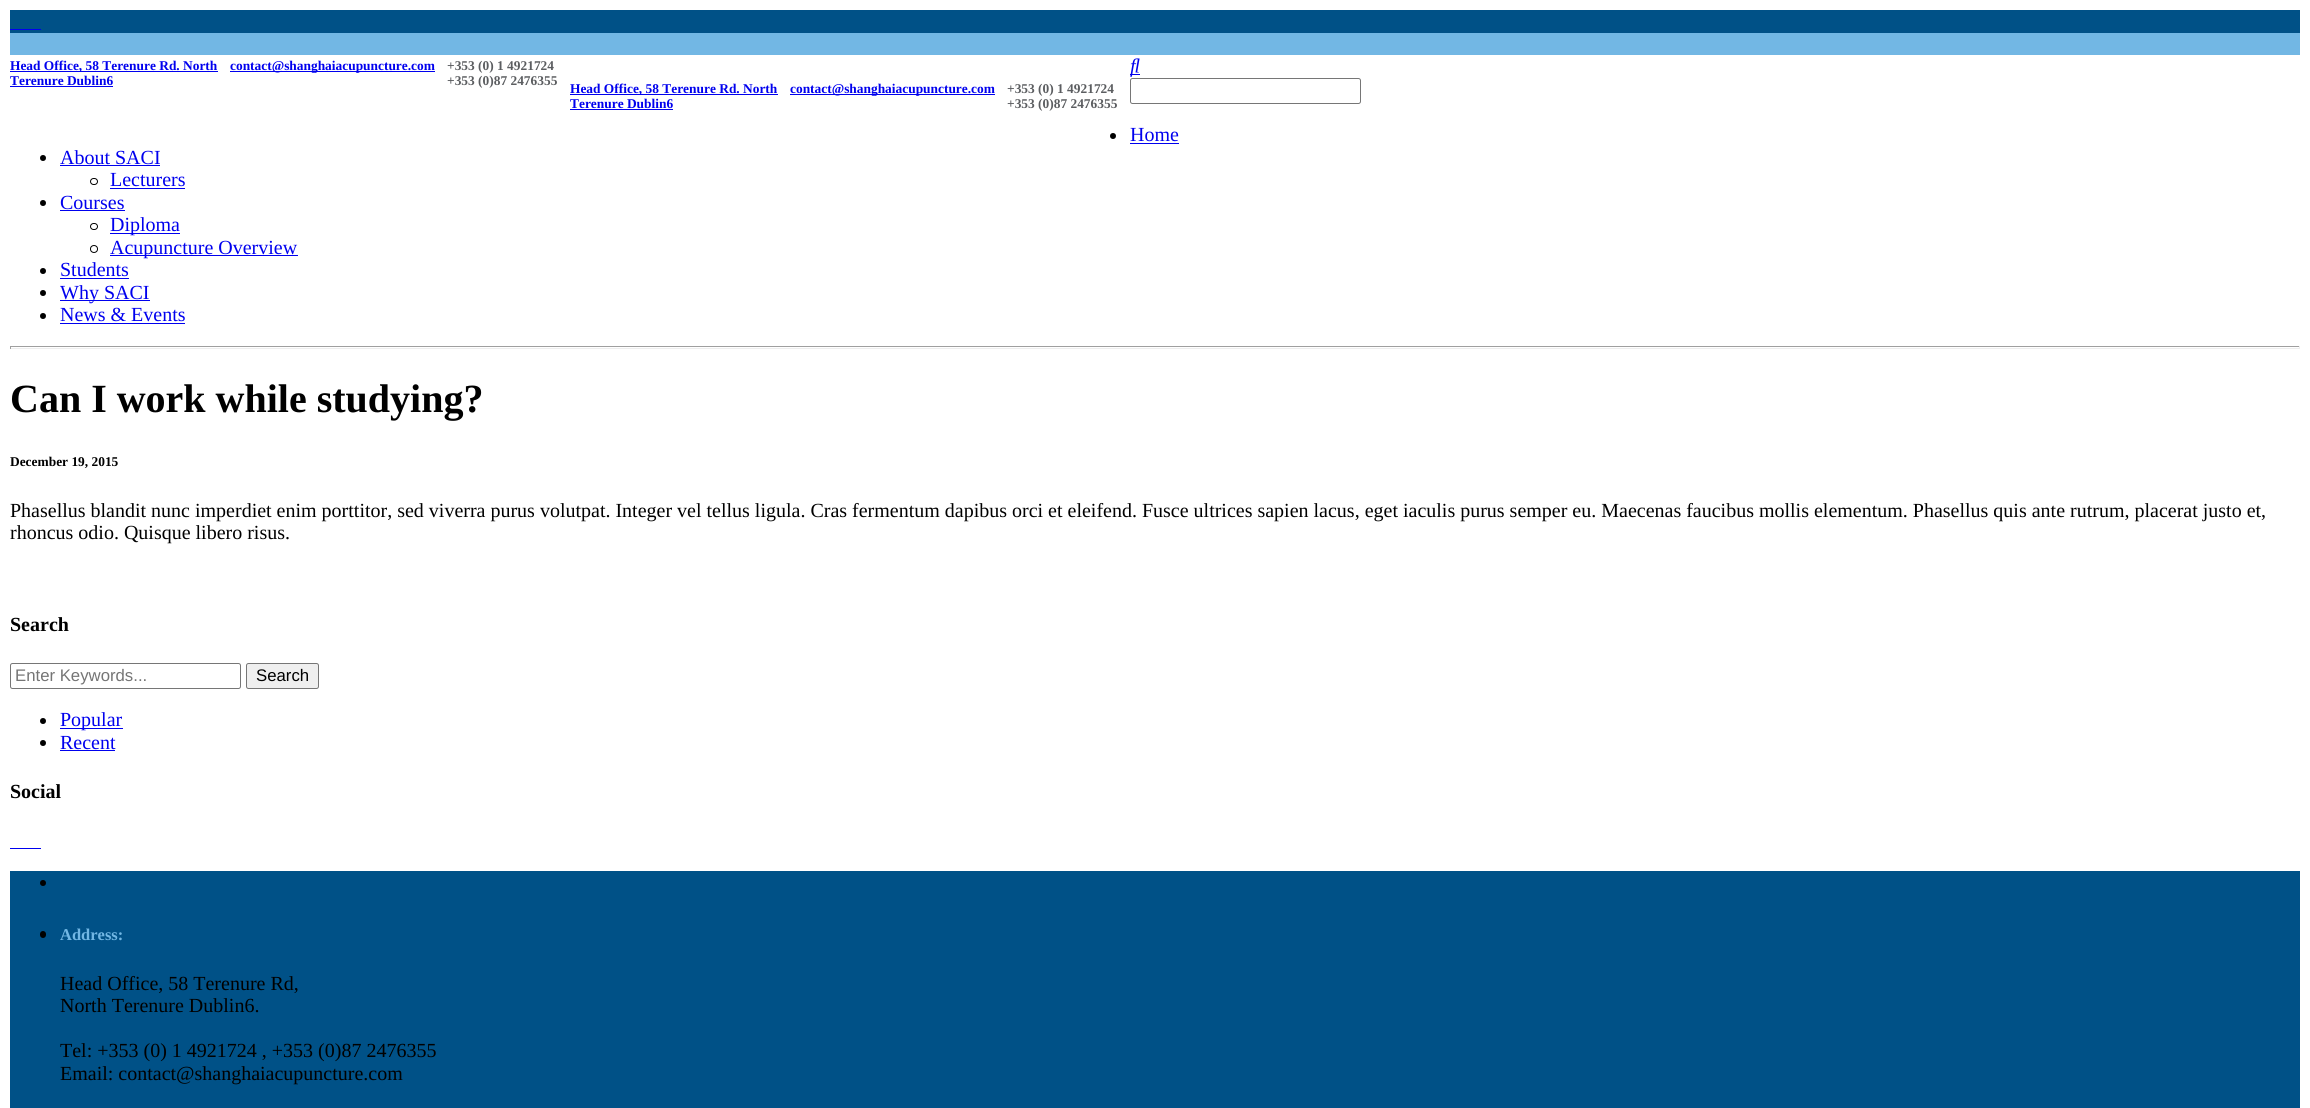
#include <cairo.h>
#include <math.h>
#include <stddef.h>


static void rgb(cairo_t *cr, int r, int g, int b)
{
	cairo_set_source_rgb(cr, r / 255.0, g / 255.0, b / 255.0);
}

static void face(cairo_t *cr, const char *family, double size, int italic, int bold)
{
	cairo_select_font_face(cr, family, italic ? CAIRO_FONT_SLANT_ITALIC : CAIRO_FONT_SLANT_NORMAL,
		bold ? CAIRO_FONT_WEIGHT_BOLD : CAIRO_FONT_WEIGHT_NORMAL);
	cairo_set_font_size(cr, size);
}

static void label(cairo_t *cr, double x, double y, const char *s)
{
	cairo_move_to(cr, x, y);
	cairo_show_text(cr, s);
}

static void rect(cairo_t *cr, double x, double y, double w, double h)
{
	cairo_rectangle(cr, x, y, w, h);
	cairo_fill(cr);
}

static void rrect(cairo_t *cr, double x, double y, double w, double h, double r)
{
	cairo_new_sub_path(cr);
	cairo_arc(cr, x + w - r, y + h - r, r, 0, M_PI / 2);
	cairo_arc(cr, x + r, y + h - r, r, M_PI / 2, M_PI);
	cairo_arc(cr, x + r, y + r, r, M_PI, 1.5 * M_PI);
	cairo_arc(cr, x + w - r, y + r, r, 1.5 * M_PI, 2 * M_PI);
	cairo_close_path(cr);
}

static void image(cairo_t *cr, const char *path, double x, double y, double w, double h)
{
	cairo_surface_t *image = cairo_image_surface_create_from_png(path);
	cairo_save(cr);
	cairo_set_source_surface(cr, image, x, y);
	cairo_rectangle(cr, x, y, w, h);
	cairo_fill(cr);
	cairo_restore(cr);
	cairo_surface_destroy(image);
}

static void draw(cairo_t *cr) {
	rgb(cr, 255, 255, 255);
	cairo_paint(cr);
	rgb(cr, 0, 81, 135);
	rect(cr, 10, 10, 2290, 23);
	rgb(cr, 0, 0, 238);
	rect(cr, 10, 29, 31, 1);
	rect(cr, 10, 71, 208, 1);
	face(cr, "Liberation Serif", 13.4, 0, 1);
	label(cr, 10, 70, "Head Office, 58 Terenure Rd. North");
	label(cr, 10, 85, "Terenure Dublin6");
	rect(cr, 10, 86, 103, 1);
	rect(cr, 230, 71, 205, 1);
	label(cr, 230, 70, "contact@shanghaiacupuncture.com");
	rgb(cr, 91, 93, 96);
	label(cr, 447, 70, "+353 (0) 1 4921724");
	label(cr, 447, 85, "+353 (0)87 2476355");
	rgb(cr, 114, 183, 228);
	rect(cr, 10, 33, 2290, 22);
	rgb(cr, 0, 0, 238);
	rect(cr, 570, 94, 208, 1);
	label(cr, 570, 93, "Head Office, 58 Terenure Rd. North");
	label(cr, 570, 108, "Terenure Dublin6");
	rect(cr, 570, 109, 103, 1);
	rect(cr, 790, 94, 205, 1);
	label(cr, 790, 93, "contact@shanghaiacupuncture.com");
	rgb(cr, 91, 93, 96);
	label(cr, 1007, 93, "+353 (0) 1 4921724");
	label(cr, 1007, 108, "+353 (0)87 2476355");
	rgb(cr, 0, 0, 238);
	rect(cr, 1130, 74, 10, 1);
	image(cr, "image0.png", 1130, 58, 10, 19);
	rrect(cr, 1130.5, 78.5, 230, 25, 2);
	rgb(cr, 118, 118, 118);
	cairo_set_line_width(cr, 1);
	cairo_stroke(cr);
	rgb(cr, 0, 0, 0);
	cairo_arc(cr, 1113, 136, 3, 0, 2 * M_PI);
	cairo_fill(cr);
	face(cr, "Liberation Serif", 20, 0, 0);
	rgb(cr, 0, 0, 238);
	label(cr, 1130, 141, "Home");
	rect(cr, 1130, 143, 49, 1);
	rgb(cr, 0, 0, 0);
	cairo_new_path(cr);
	cairo_arc(cr, 43, 158, 3, 0, 2 * M_PI);
	cairo_fill(cr);
	rgb(cr, 0, 0, 238);
	label(cr, 60, 164, "About SACI");
	rect(cr, 60, 165, 100, 1);
	rrect(cr, 90.5, 178.5, 7, 6, 3);
	rgb(cr, 0, 0, 0);
	cairo_stroke(cr);
	rgb(cr, 0, 0, 238);
	label(cr, 110, 186, "Lecturers");
	rect(cr, 110, 188, 75, 1);
	rgb(cr, 0, 0, 0);
	cairo_new_path(cr);
	cairo_arc(cr, 43, 203, 3, 0, 2 * M_PI);
	cairo_fill(cr);
	rgb(cr, 0, 0, 238);
	label(cr, 60, 209, "Courses");
	rect(cr, 60, 210, 65, 1);
	rrect(cr, 90.5, 223.5, 7, 6, 3);
	rgb(cr, 0, 0, 0);
	cairo_stroke(cr);
	rgb(cr, 0, 0, 238);
	rect(cr, 110, 233, 70, 1);
	label(cr, 110, 231, "Diploma");
	cairo_new_path(cr);
	cairo_arc(cr, 94, 249, 3.5, 0, 2 * M_PI);
	rgb(cr, 0, 0, 0);
	cairo_stroke(cr);
	rgb(cr, 0, 0, 238);
	rect(cr, 110, 255, 188, 1);
	label(cr, 110, 254, "Acupuncture Overview");
	rgb(cr, 0, 0, 0);
	cairo_new_path(cr);
	cairo_arc(cr, 43, 271, 3, 0, 2 * M_PI);
	cairo_fill(cr);
	rgb(cr, 0, 0, 238);
	label(cr, 60, 276, "Students");
	rect(cr, 60, 278, 69, 1);
	rgb(cr, 0, 0, 0);
	cairo_new_path(cr);
	cairo_arc(cr, 43, 293, 3, 0, 2 * M_PI);
	cairo_fill(cr);
	rgb(cr, 0, 0, 238);
	rect(cr, 60, 300, 90, 1);
	label(cr, 60, 299, "Why SACI");
	rgb(cr, 0, 0, 0);
	cairo_new_path(cr);
	cairo_arc(cr, 43, 316, 3, 0, 2 * M_PI);
	cairo_fill(cr);
	rgb(cr, 0, 0, 238);
	label(cr, 60, 321, "News & Events");
	rect(cr, 60, 323, 125, 1);
	rgb(cr, 159, 159, 159);
	rect(cr, 10, 346, 2290, 1);
	rgb(cr, 238, 238, 238);
	rect(cr, 2299, 346, 1, 3);
	rect(cr, 10, 348, 2290, 1);
	rgb(cr, 159, 159, 159);
	rect(cr, 10, 346, 1, 3);
	face(cr, "Liberation Serif", 40, 0, 1);
	rgb(cr, 0, 0, 0);
	label(cr, 10, 412, "Can I work while studying?");
	face(cr, "Liberation Serif", 13.4, 0, 1);
	label(cr, 10, 466, "December 19, 2015");
	face(cr, "Liberation Serif", 20, 0, 0);
	label(cr, 10, 517, "Phasellus blandit nunc imperdiet enim porttitor, sed viverra purus volutpat. Integer vel tellus ligula. Cras fermentum dapibus orci et eleifend. Fusce ultrices sapien lacus, eget iaculis purus semper eu. Maecenas faucibus mollis elementum. Phasellus quis ante rutrum, placerat justo et,");
	label(cr, 10, 539, "rhoncus odio. Quisque libero risus.");
	face(cr, "Liberation Serif", 20, 0, 1);
	label(cr, 10, 631, "Search");
	rrect(cr, 10.5, 663.5, 230, 25, 2);
	rgb(cr, 118, 118, 118);
	cairo_stroke(cr);
	face(cr, "Liberation Sans", 16.75, 0, 0);
	rgb(cr, 117, 117, 117);
	label(cr, 15, 681, "Enter Keywords...");
	rgb(cr, 239, 239, 239);
	rrect(cr, 246.5, 663.5, 72, 25, 2);
	cairo_fill_preserve(cr);
	rgb(cr, 118, 118, 118);
	cairo_stroke(cr);
	rgb(cr, 0, 0, 0);
	label(cr, 256, 681, "Search");
	cairo_new_path(cr);
	cairo_arc(cr, 43, 721, 3, 0, 2 * M_PI);
	cairo_fill(cr);
	rgb(cr, 0, 0, 238);
	rect(cr, 60, 728, 63, 1);
	face(cr, "Liberation Serif", 20, 0, 0);
	label(cr, 60, 726, "Popular");
	rgb(cr, 0, 0, 0);
	cairo_new_path(cr);
	cairo_arc(cr, 43, 743, 3, 0, 2 * M_PI);
	cairo_fill(cr);
	rgb(cr, 0, 0, 238);
	label(cr, 60, 749, "Recent");
	rect(cr, 60, 750, 55, 1);
	face(cr, "Liberation Serif", 20, 0, 1);
	rgb(cr, 0, 0, 0);
	label(cr, 10, 798, "Social");
	rgb(cr, 0, 0, 238);
	rect(cr, 10, 848, 31, 1);
	rgb(cr, 0, 81, 135);
	rect(cr, 10, 871, 2290, 237);
	rgb(cr, 0, 0, 0);
	cairo_new_path(cr);
	cairo_arc(cr, 43, 883, 3, 0, 2 * M_PI);
	cairo_fill(cr);
	rrect(cr, 40, 931, 6, 7, 3);
	cairo_fill(cr);
	face(cr, "Liberation Serif", 16.5, 0, 1);
	rgb(cr, 114, 183, 228);
	label(cr, 60, 940, "Address:");
	face(cr, "Liberation Serif", 20, 0, 0);
	rgb(cr, 0, 0, 0);
	label(cr, 60, 990, "Head Office, 58 Terenure Rd,");
	label(cr, 60, 1012, "North Terenure Dublin6.");
	label(cr, 60, 1057, "Tel: +353 (0) 1 4921724 , +353 (0)87 2476355");
	label(cr, 60, 1080, "Email: contact@shanghaiacupuncture.com");
}

int main(void) {
	cairo_surface_t *surface = cairo_image_surface_create(CAIRO_FORMAT_RGB24, 2310, 1108);
	cairo_t *cr = cairo_create(surface);
	cairo_font_options_t *options = cairo_font_options_create();
	cairo_font_options_set_hint_metrics(options, CAIRO_HINT_METRICS_OFF);
	cairo_font_options_set_hint_style(options, CAIRO_HINT_STYLE_NONE);
	cairo_set_font_options(cr, options);
	cairo_set_miter_limit(cr, 4);
	draw(cr);
	cairo_surface_write_to_png(surface, "render.png");
	cairo_font_options_destroy(options);
	cairo_destroy(cr);
	cairo_surface_destroy(surface);
	return 0;
}
